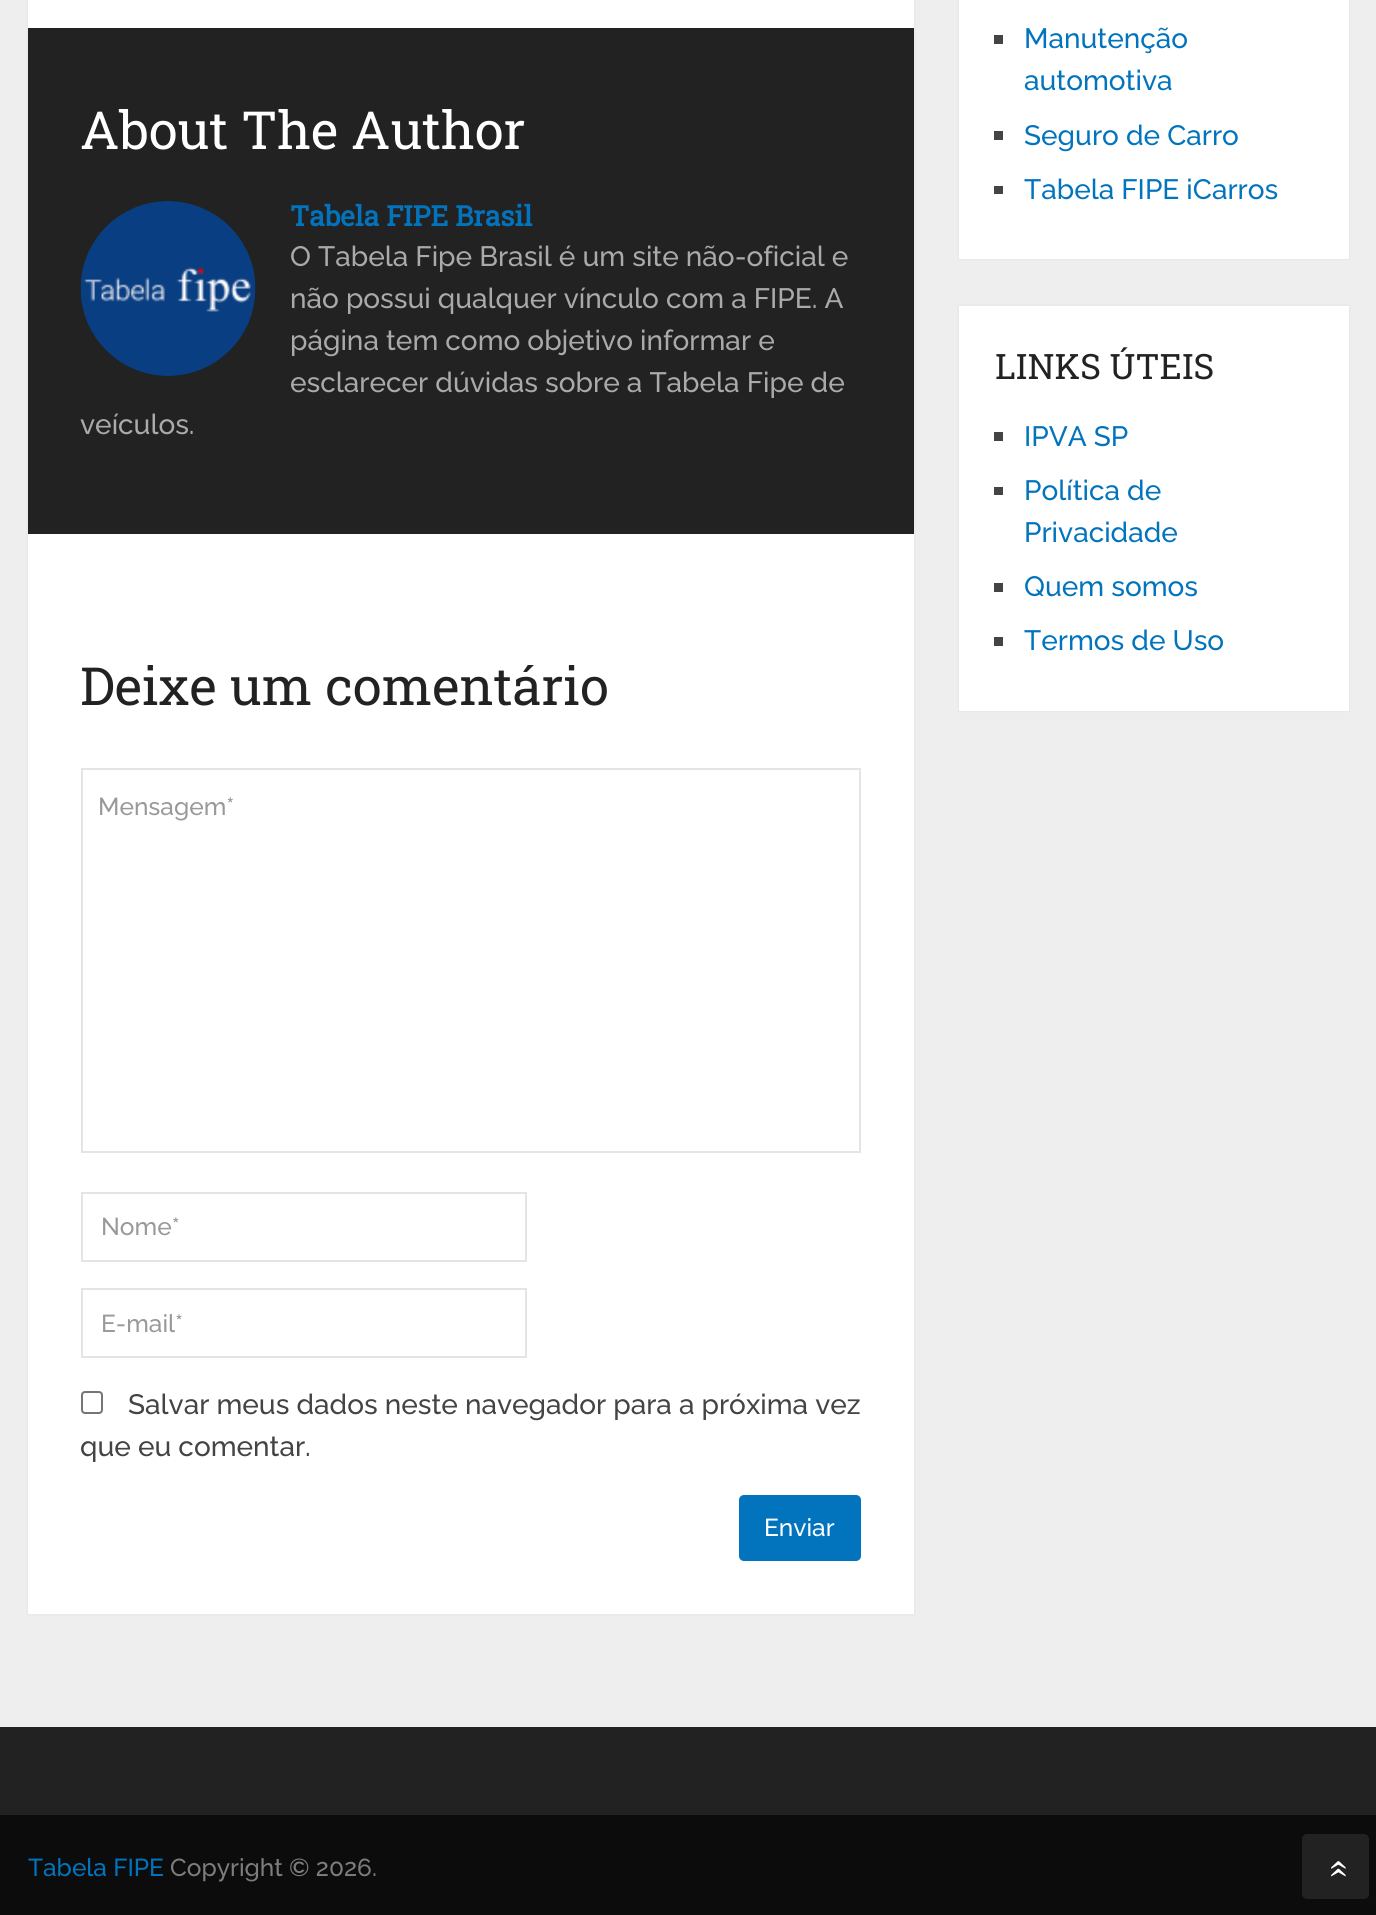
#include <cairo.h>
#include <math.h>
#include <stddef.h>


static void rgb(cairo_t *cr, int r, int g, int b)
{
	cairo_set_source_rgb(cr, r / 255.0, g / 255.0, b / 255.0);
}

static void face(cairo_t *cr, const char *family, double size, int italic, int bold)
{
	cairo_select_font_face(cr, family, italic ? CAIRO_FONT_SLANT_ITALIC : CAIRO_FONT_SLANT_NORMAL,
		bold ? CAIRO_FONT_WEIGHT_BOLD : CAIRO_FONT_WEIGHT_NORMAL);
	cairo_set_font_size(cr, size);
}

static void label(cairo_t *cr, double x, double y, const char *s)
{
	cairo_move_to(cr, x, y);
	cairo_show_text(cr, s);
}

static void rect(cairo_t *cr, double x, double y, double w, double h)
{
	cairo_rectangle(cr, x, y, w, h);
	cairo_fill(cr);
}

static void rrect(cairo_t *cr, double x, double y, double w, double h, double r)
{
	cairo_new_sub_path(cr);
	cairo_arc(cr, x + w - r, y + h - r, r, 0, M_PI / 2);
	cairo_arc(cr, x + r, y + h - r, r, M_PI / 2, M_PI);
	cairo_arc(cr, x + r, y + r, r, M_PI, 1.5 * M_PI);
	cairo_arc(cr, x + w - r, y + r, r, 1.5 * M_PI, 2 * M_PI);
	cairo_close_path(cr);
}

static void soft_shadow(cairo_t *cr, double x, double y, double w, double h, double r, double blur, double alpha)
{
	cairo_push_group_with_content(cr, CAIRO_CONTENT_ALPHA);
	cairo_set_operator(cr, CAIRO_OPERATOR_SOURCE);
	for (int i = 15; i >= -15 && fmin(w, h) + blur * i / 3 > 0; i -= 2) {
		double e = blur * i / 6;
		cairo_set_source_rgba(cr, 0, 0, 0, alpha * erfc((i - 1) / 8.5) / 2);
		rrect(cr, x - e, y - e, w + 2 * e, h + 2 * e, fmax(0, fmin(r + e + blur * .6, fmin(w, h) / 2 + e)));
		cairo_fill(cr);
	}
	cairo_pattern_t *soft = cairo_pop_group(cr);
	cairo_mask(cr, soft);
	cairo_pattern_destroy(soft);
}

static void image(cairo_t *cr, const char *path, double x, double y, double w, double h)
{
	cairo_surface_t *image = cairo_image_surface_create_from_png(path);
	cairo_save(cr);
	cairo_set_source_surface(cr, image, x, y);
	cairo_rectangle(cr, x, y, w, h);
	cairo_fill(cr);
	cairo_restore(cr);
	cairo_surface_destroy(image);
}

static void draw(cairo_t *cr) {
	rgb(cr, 238, 238, 238);
	cairo_paint(cr);
	rgb(cr, 50, 50, 50);
	soft_shadow(cr, 28, -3, 886, 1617, 0, 1, 0.1);
	rgb(cr, 255, 255, 255);
	rect(cr, 28, 0, 886, 1614);
	rgb(cr, 34, 34, 34);
	rect(cr, 28, 28, 886, 506);
	face(cr, "Roboto Slab", 52.5, 0, 0);
	rgb(cr, 255, 255, 255);
	label(cr, 80, 149, "About The Author");
	image(cr, "image0.png", 80, 201, 176, 175);
	face(cr, "Roboto Slab", 28, 0, 1);
	rgb(cr, 2, 116, 190);
	label(cr, 290, 226, "Tabela FIPE Brasil");
	face(cr, "Raleway Thin", 28, 0, 0);
	rgb(cr, 170, 170, 170);
	label(cr, 290, 266, "O Tabela Fipe Brasil é um site não-oficial e");
	label(cr, 290, 308, "não possui qualquer vínculo com a FIPE. A");
	label(cr, 290, 350, "página tem como objetivo informar e");
	label(cr, 290, 392, "esclarecer dúvidas sobre a Tabela Fipe de");
	label(cr, 80, 434, "veículos.");
	face(cr, "Roboto Slab", 52.5, 0, 0);
	rgb(cr, 34, 34, 34);
	label(cr, 80, 705, "Deixe um comentário");
	cairo_rectangle(cr, 82, 769, 778, 383);
	rgb(cr, 228, 228, 228);
	cairo_stroke(cr);
	face(cr, "Raleway Thin", 24.5, 0, 0);
	rgb(cr, 153, 153, 153);
	label(cr, 98, 815, "Mensagem*");
	cairo_rectangle(cr, 82, 1193, 444, 68);
	rgb(cr, 228, 228, 228);
	cairo_stroke(cr);
	rgb(cr, 153, 153, 153);
	label(cr, 101, 1235, "Nome*");
	cairo_rectangle(cr, 82, 1289, 444, 68);
	rgb(cr, 228, 228, 228);
	cairo_stroke(cr);
	rgb(cr, 153, 153, 153);
	label(cr, 101, 1332, "E-mail*");
	rrect(cr, 82, 1392, 20, 21, 3);
	rgb(cr, 118, 118, 118);
	cairo_stroke(cr);
	face(cr, "Raleway Thin", 28, 0, 0);
	rgb(cr, 68, 68, 68);
	label(cr, 128, 1414, "Salvar meus dados neste navegador para a próxima vez");
	label(cr, 80, 1456, "que eu comentar.");
	rgb(cr, 2, 116, 190);
	rrect(cr, 739, 1495, 122, 66, 5);
	cairo_fill(cr);
	face(cr, "Raleway Thin", 24.5, 0, 0);
	rgb(cr, 255, 255, 255);
	label(cr, 764, 1536, "Enviar");
	rgb(cr, 50, 50, 50);
	soft_shadow(cr, 959, -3, 390, 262, 0, 1, 0.1);
	rgb(cr, 255, 255, 255);
	rect(cr, 959, 0, 390, 259);
	rgb(cr, 68, 68, 68);
	rect(cr, 994, 35, 9, 9);
	face(cr, "Raleway Thin", 28, 0, 0);
	rgb(cr, 2, 116, 190);
	label(cr, 1024, 48, "Manutenção");
	label(cr, 1024, 90, "automotiva");
	rgb(cr, 68, 68, 68);
	rect(cr, 994, 131, 9, 9);
	rgb(cr, 2, 116, 190);
	label(cr, 1024, 145, "Seguro de Carro");
	rgb(cr, 68, 68, 68);
	rect(cr, 994, 186, 9, 8);
	rgb(cr, 2, 116, 190);
	label(cr, 1024, 199, "Tabela FIPE iCarros");
	rgb(cr, 50, 50, 50);
	soft_shadow(cr, 959, 306, 390, 405, 0, 1, 0.1);
	rgb(cr, 255, 255, 255);
	rect(cr, 959, 306, 390, 405);
	face(cr, "Roboto Slab", 35, 0, 0);
	rgb(cr, 34, 34, 34);
	label(cr, 995, 379, "LINKS ÚTEIS");
	rgb(cr, 68, 68, 68);
	rect(cr, 994, 432, 9, 9);
	face(cr, "Raleway Thin", 28, 0, 0);
	rgb(cr, 2, 116, 190);
	label(cr, 1024, 446, "IPVA SP");
	rgb(cr, 68, 68, 68);
	rect(cr, 994, 487, 9, 8);
	rgb(cr, 2, 116, 190);
	label(cr, 1024, 500, "Política de");
	label(cr, 1024, 542, "Privacidade");
	rgb(cr, 68, 68, 68);
	rect(cr, 994, 583, 9, 9);
	rgb(cr, 2, 116, 190);
	label(cr, 1024, 596, "Quem somos");
	rgb(cr, 68, 68, 68);
	rect(cr, 994, 637, 9, 9);
	rgb(cr, 2, 116, 190);
	label(cr, 1024, 650, "Termos de Uso");
	rgb(cr, 34, 34, 34);
	rect(cr, 0, 1727, 1376, 88);
	rgb(cr, 12, 12, 12);
	rect(cr, 0, 1815, 1376, 100);
	face(cr, "Raleway Thin", 24.5, 0, 0);
	rgb(cr, 2, 116, 190);
	label(cr, 28, 1876, "Tabela FIPE");
	rgb(cr, 126, 125, 125);
	label(cr, 170, 1876, "Copyright © 2026.");
	rgb(cr, 34, 34, 34);
	rrect(cr, 1302, 1834, 67, 65, 5);
	cairo_fill(cr);
	face(cr, "Liberation Serif", 38, 0, 0);
	rgb(cr, 255, 255, 255);
	cairo_save(cr);
	cairo_translate(cr, 1347, 1878);
	cairo_rotate(cr, -90 * M_PI / 180);
	label(cr, 0, 0, "»");
	cairo_restore(cr);
}

int main(void) {
	cairo_surface_t *surface = cairo_image_surface_create(CAIRO_FORMAT_RGB24, 1376, 1915);
	cairo_t *cr = cairo_create(surface);
	cairo_font_options_t *options = cairo_font_options_create();
	cairo_font_options_set_hint_metrics(options, CAIRO_HINT_METRICS_OFF);
	cairo_font_options_set_hint_style(options, CAIRO_HINT_STYLE_NONE);
	cairo_set_font_options(cr, options);
	cairo_set_miter_limit(cr, 4);
	draw(cr);
	cairo_surface_write_to_png(surface, "render.png");
	cairo_font_options_destroy(options);
	cairo_destroy(cr);
	cairo_surface_destroy(surface);
	return 0;
}
